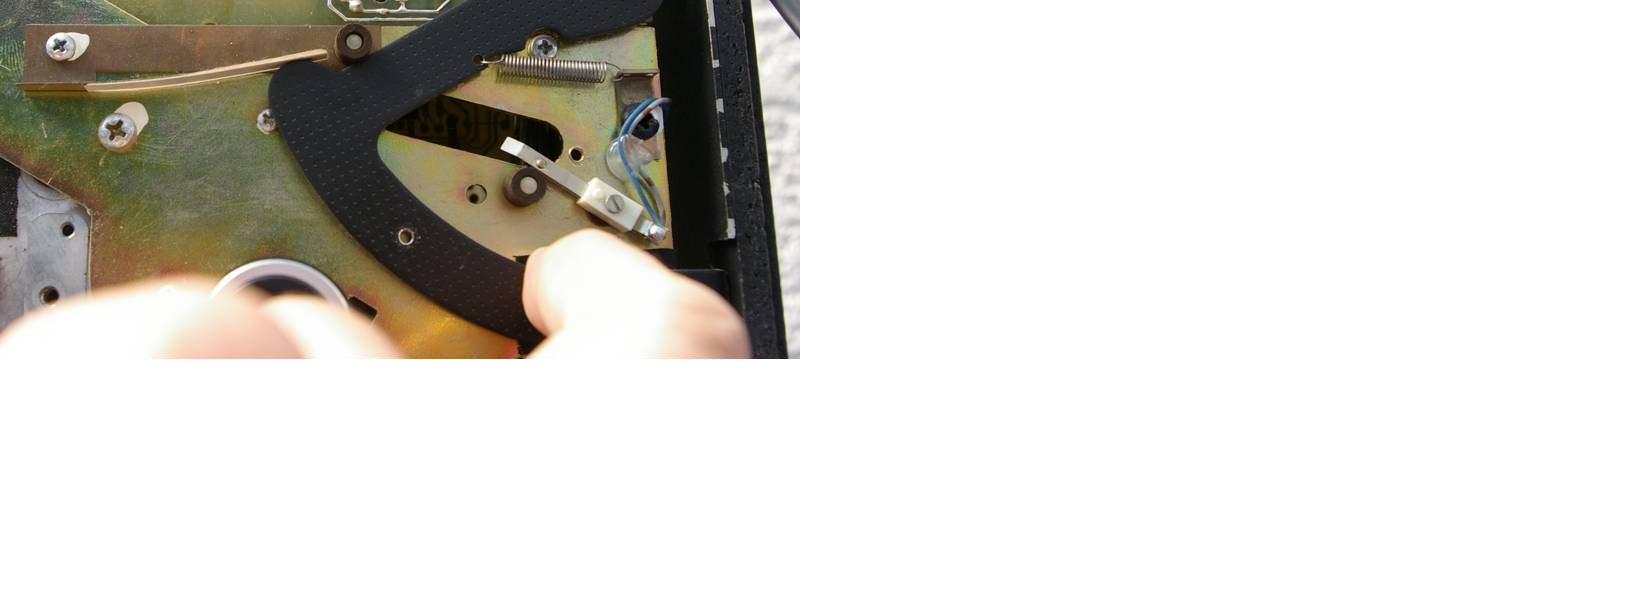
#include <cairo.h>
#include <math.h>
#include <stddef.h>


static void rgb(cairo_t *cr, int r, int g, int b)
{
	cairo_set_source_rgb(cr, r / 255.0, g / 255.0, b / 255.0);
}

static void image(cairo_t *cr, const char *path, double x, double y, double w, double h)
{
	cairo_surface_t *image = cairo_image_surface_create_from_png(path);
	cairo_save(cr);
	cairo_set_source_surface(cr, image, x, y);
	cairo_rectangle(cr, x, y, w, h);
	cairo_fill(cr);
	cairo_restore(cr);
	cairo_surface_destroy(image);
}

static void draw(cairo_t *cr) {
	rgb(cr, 255, 255, 255);
	cairo_paint(cr);
	image(cr, "image0.png", 0, 0, 800, 359);
}

int main(void) {
	cairo_surface_t *surface = cairo_image_surface_create(CAIRO_FORMAT_RGB24, 1634, 614);
	cairo_t *cr = cairo_create(surface);
	cairo_font_options_t *options = cairo_font_options_create();
	cairo_font_options_set_hint_metrics(options, CAIRO_HINT_METRICS_OFF);
	cairo_font_options_set_hint_style(options, CAIRO_HINT_STYLE_NONE);
	cairo_set_font_options(cr, options);
	cairo_set_miter_limit(cr, 4);
	draw(cr);
	cairo_surface_write_to_png(surface, "render.png");
	cairo_font_options_destroy(options);
	cairo_destroy(cr);
	cairo_surface_destroy(surface);
	return 0;
}
